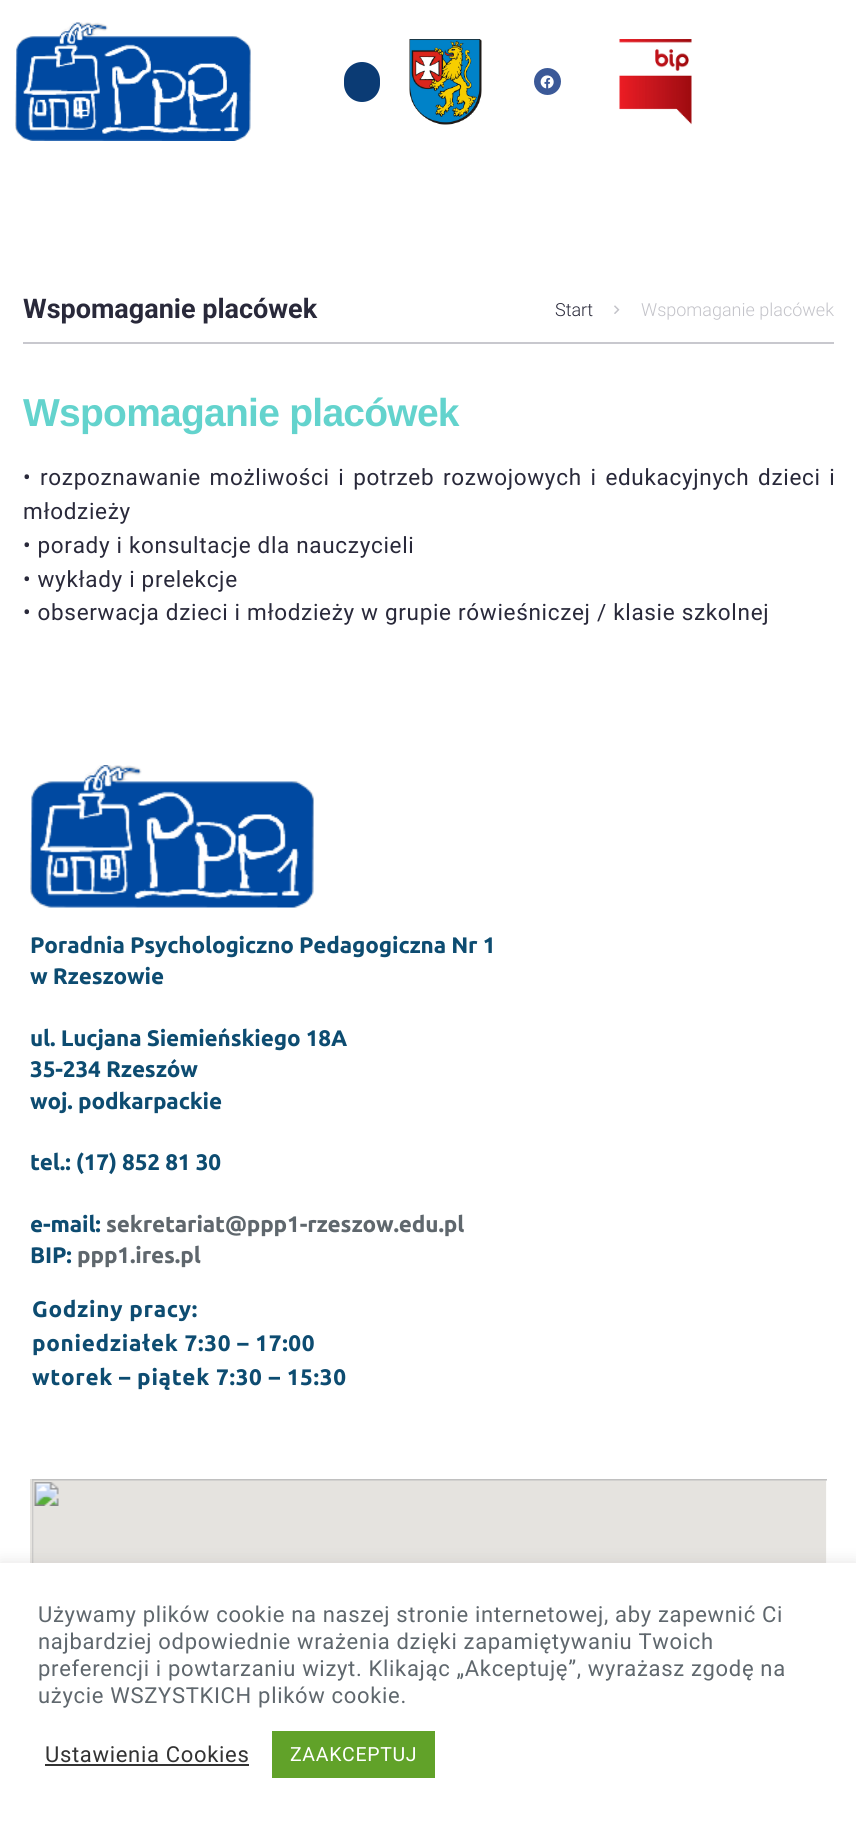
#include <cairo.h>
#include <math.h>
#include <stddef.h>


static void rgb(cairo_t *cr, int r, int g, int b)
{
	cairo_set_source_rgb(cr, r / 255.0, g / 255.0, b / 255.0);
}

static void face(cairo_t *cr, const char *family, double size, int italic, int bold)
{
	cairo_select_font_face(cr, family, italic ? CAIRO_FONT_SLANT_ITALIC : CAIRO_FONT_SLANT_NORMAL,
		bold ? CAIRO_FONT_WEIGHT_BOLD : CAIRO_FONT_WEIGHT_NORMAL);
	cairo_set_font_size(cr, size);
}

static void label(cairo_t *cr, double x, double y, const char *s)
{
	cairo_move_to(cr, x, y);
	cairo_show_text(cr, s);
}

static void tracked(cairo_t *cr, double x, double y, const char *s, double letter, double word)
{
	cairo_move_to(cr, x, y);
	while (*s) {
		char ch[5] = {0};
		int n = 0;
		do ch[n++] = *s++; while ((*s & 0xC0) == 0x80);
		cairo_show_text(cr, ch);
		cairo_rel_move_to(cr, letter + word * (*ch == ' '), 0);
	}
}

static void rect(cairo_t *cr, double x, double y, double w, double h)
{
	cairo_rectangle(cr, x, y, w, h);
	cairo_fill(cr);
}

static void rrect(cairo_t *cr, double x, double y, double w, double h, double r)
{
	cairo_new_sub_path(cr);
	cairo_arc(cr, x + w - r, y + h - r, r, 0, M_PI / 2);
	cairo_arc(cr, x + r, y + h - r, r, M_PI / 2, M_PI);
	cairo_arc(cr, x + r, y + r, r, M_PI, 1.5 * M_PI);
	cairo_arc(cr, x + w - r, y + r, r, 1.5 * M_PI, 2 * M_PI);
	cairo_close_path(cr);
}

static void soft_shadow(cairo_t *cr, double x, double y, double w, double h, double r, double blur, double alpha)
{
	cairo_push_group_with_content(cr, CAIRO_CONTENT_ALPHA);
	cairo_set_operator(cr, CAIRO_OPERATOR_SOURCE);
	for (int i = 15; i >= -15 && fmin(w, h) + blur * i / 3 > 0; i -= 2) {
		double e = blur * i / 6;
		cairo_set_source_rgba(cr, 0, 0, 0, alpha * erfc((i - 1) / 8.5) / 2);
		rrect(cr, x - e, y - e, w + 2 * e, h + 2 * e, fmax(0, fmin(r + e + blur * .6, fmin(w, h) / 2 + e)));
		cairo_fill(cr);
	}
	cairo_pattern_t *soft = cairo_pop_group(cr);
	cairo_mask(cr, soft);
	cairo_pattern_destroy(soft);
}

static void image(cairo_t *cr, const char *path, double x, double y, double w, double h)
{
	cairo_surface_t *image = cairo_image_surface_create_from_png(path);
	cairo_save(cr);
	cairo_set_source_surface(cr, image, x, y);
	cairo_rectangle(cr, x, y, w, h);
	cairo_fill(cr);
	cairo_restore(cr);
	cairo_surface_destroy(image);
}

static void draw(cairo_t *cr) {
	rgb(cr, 255, 255, 255);
	cairo_paint(cr);
	image(cr, "image0.png", 15, 22, 236, 119);
	rgb(cr, 11, 59, 116);
	rrect(cr, 344, 62, 36, 40, 18);
	cairo_fill(cr);
	image(cr, "image1.png", 409, 39, 73, 86);
	rgb(cr, 59, 89, 152);
	cairo_arc(cr, 547.5, 81.5, 13.5, 0, 2 * M_PI);
	cairo_fill(cr);
	image(cr, "image2.png", 540, 75, 14, 14);
	image(cr, "image3.png", 619, 39, 73, 86);
	rgb(cr, 200, 200, 206);
	rect(cr, 23, 342, 811, 2);
	face(cr, "Roboto", 27, 0, 1);
	rgb(cr, 41, 41, 58);
	label(cr, 23, 318, "Wspomaganie placówek");
	face(cr, "Roboto Light", 18, 0, 0);
	label(cr, 555, 316, "Start");
	image(cr, "image4.png", 614, 305, 6, 9);
	rgb(cr, 195, 195, 201);
	label(cr, 641, 316, "Wspomaganie placówek");
	face(cr, "Liberation Sans", 39, 0, 1);
	rgb(cr, 99, 211, 205);
	tracked(cr, 23, 426, "Wspomaganie placówek", -0.75, 0);
	face(cr, "Roboto", 22.5, 0, 0);
	rgb(cr, 41, 41, 58);
	tracked(cr, 23, 485, "• rozpoznawanie możliwości i potrzeb rozwojowych i edukacyjnych dzieci i", 0.68, 2.5);
	tracked(cr, 23, 519, "młodzieży", 0.68, 0);
	tracked(cr, 23, 553, "• porady i konsultacje dla nauczycieli", 0.68, 0);
	tracked(cr, 23, 587, "• wykłady i prelekcje", 0.68, 0);
	tracked(cr, 23, 620, "• obserwacja dzieci i młodzieży w grupie rówieśniczej / klasie szkolnej", 0.68, 0);
	image(cr, "image5.png", 30, 765, 284, 143);
	face(cr, "Ubuntu", 22.5, 0, 1);
	rgb(cr, 13, 76, 113);
	tracked(cr, 30, 953, "Poradnia Psychologiczno Pedagogiczna Nr 1", -0.15, 0);
	tracked(cr, 30, 984, "w Rzeszowie", -0.15, 0);
	tracked(cr, 30, 1046, "ul. Lucjana Siemieńskiego 18A", -0.15, 0);
	tracked(cr, 30, 1077, "35-234 Rzeszów", -0.15, 0);
	tracked(cr, 30, 1109, "woj. podkarpackie", -0.15, 0);
	tracked(cr, 30, 1170, "tel.: (17) 852 81 30", -0.15, 0);
	tracked(cr, 30, 1232, "e-mail:", -0.15, 0);
	rgb(cr, 95, 103, 109);
	tracked(cr, 106, 1232, "sekretariat@ppp1-rzeszow.edu.pl", -0.15, 0);
	rgb(cr, 13, 76, 113);
	tracked(cr, 30, 1263, "BIP:", -0.15, 0);
	rgb(cr, 95, 103, 109);
	tracked(cr, 77, 1263, "ppp1.ires.pl", -0.15, 0);
	rgb(cr, 13, 76, 113);
	tracked(cr, 32, 1317, "Godziny pracy:", 0.68, 0);
	tracked(cr, 32, 1351, "poniedziałek 7:30 – 17:00", 0.68, 0);
	tracked(cr, 32, 1385, "wtorek – piątek 7:30 – 15:30", 0.68, 0);
	image(cr, "image6.png", 30, 1479, 797, 84);
	rgb(cr, 172, 171, 171);
	soft_shadow(cr, 0, 1562, 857, 259, 0, 7.5, 0.3);
	rgb(cr, 255, 255, 255);
	rect(cr, 0, 1563, 856, 259);
	face(cr, "Roboto", 22, 0, 0);
	rgb(cr, 95, 103, 109);
	tracked(cr, 38, 1622, "Używamy plików cookie na naszej stronie internetowej, aby zapewnić Ci", 0.68, 0);
	tracked(cr, 38, 1649, "najbardziej odpowiednie wrażenia dzięki zapamiętywaniu Twoich", 0.68, 0);
	tracked(cr, 38, 1676, "preferencji i powtarzaniu wizyt. Klikając „Akceptuję”, wyrażasz zgodę na", 0.68, 0);
	tracked(cr, 38, 1703, "użycie WSZYSTKICH plików cookie.", 0.68, 0);
	rgb(cr, 51, 51, 51);
	tracked(cr, 45, 1762, "Ustawienia Cookies", 0.68, 0);
	rect(cr, 45, 1764, 204, 2);
	rgb(cr, 97, 162, 41);
	rect(cr, 272, 1731, 163, 47);
	face(cr, "Roboto", 19.5, 0, 0);
	rgb(cr, 255, 255, 255);
	tracked(cr, 290, 1761, "ZAAKCEPTUJ", 0.68, 0);
}

int main(void) {
	cairo_surface_t *surface = cairo_image_surface_create(CAIRO_FORMAT_RGB24, 856, 1822);
	cairo_t *cr = cairo_create(surface);
	cairo_font_options_t *options = cairo_font_options_create();
	cairo_font_options_set_hint_metrics(options, CAIRO_HINT_METRICS_OFF);
	cairo_font_options_set_hint_style(options, CAIRO_HINT_STYLE_NONE);
	cairo_set_font_options(cr, options);
	cairo_set_miter_limit(cr, 4);
	draw(cr);
	cairo_surface_write_to_png(surface, "render.png");
	cairo_font_options_destroy(options);
	cairo_destroy(cr);
	cairo_surface_destroy(surface);
	return 0;
}
